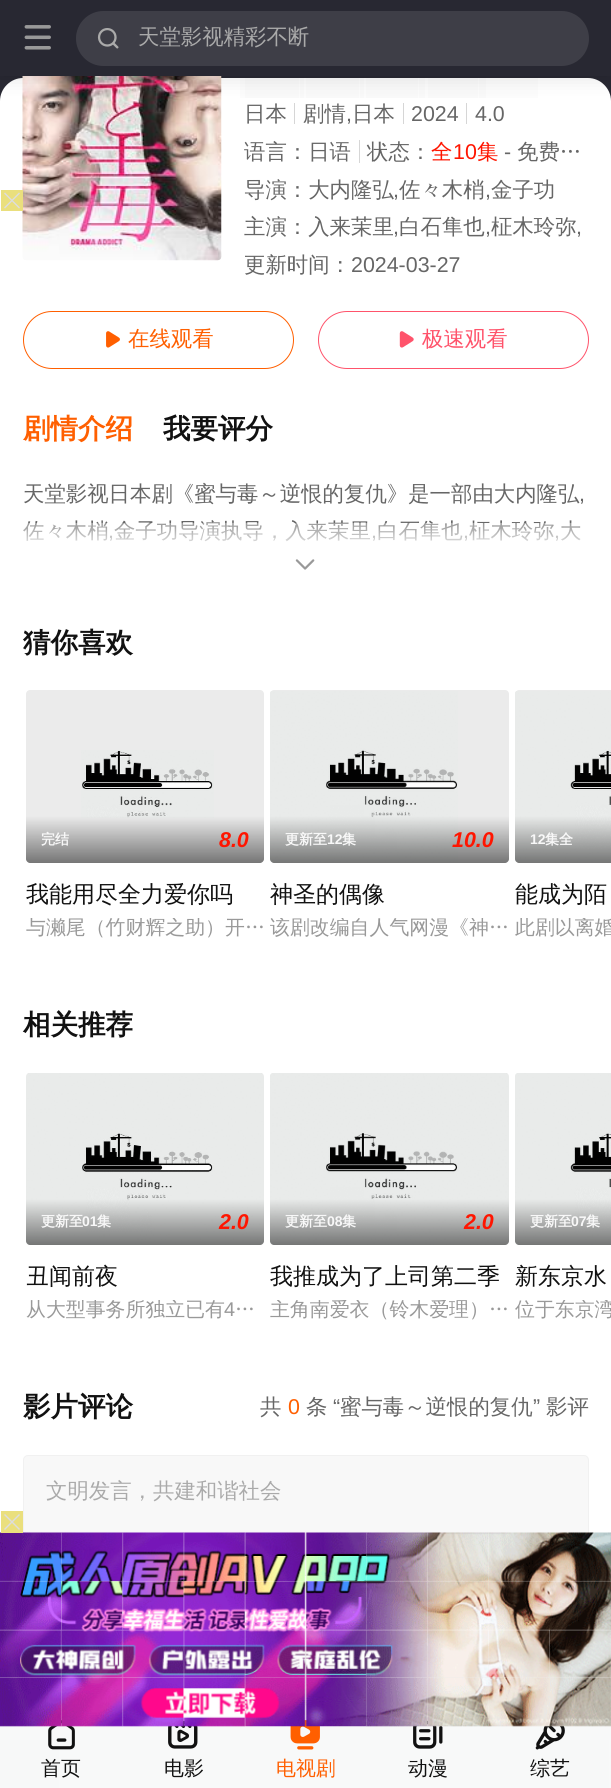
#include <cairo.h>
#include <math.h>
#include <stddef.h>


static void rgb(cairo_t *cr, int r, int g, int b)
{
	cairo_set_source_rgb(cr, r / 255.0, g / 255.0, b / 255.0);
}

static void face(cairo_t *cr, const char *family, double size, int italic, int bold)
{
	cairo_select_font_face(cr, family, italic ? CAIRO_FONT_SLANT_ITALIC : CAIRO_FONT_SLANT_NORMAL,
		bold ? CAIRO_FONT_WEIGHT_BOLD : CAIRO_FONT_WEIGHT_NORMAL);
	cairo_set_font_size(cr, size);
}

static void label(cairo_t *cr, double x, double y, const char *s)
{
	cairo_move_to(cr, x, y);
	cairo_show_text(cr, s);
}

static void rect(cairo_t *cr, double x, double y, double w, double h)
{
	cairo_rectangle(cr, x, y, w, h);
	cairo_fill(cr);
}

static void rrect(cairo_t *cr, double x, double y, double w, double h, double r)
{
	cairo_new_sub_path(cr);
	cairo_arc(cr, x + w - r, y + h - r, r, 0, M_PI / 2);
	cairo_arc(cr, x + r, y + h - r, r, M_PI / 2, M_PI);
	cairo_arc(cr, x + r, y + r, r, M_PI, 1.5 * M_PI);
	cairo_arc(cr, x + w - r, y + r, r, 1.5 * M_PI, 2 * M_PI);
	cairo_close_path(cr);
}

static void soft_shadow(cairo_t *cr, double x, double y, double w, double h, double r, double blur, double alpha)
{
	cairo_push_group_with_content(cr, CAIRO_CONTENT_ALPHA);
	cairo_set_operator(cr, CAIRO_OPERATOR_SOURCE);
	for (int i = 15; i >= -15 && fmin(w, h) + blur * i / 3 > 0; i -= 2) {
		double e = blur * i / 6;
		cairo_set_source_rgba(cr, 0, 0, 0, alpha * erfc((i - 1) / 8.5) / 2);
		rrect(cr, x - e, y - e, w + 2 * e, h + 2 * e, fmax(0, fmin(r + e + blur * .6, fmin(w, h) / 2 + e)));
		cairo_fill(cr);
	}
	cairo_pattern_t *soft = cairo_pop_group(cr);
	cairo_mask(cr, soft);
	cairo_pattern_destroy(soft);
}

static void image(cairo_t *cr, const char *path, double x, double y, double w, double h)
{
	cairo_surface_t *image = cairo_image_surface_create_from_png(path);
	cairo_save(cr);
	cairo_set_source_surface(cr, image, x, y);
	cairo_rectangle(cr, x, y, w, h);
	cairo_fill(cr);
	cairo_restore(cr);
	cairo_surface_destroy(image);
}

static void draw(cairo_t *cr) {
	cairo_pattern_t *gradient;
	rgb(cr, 255, 255, 255);
	cairo_paint(cr);
	rgb(cr, 249, 249, 249);
	rect(cr, 306, 1643, 1, 3);
	rgb(cr, 40, 40, 50);
	rect(cr, 0, 76, 611, 25);
	rgb(cr, 255, 255, 255);
	cairo_new_path(cr);
	cairo_move_to(cr, 23, 78);
	cairo_line_to(cr, 588, 78);
	cairo_curve_to(cr, 600.5, 78, 611, 88.5, 611, 101);
	cairo_line_to(cr, 611, 384);
	cairo_line_to(cr, 0, 384);
	cairo_line_to(cr, 0, 101);
	cairo_curve_to(cr, 0, 88.5, 10.5, 78, 23, 78);
	cairo_close_path(cr);
	cairo_fill(cr);
	rgb(cr, 252, 252, 252);
	rect(cr, 478, 78, 1, 20);
	rect(cr, 418, 78, 1, 20);
	rect(cr, 359, 78, 1, 20);
	rect(cr, 299, 78, 1, 20);
	rect(cr, 486, 78, 52, 20);
	rgb(cr, 249, 249, 249);
	rect(cr, 479, 78, 7, 20);
	rgb(cr, 252, 252, 252);
	rect(cr, 425, 78, 3, 20);
	rgb(cr, 249, 249, 249);
	rect(cr, 428, 78, 50, 20);
	rect(cr, 419, 78, 6, 20);
	rgb(cr, 252, 252, 252);
	rect(cr, 364, 78, 2, 20);
	rgb(cr, 249, 249, 249);
	rect(cr, 366, 78, 52, 20);
	rect(cr, 360, 78, 4, 20);
	rgb(cr, 252, 252, 252);
	rect(cr, 304, 78, 2, 20);
	rgb(cr, 249, 249, 249);
	rect(cr, 306, 78, 53, 20);
	rect(cr, 300, 78, 4, 20);
	rgb(cr, 252, 252, 252);
	rect(cr, 240, 78, 5, 20);
	rgb(cr, 249, 249, 249);
	rect(cr, 245, 78, 54, 20);
	image(cr, "image2.png", 22, 76, 200, 185);
	rgb(cr, 214, 214, 214);
	rect(cr, 294, 103, 1, 21);
	rect(cr, 403, 103, 1, 21);
	rect(cr, 466, 103, 1, 21);
	rgb(cr, 0, 0, 0);
	soft_shadow(cr, 0, -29, 611, 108, 0, 9.5, 0.1);
	rgb(cr, 40, 40, 50);
	rect(cr, 0, 0, 611, 76);
	image(cr, "image0.png", 24, 25, 27, 25);
	rgb(cr, 62, 62, 71);
	rrect(cr, 76, 11, 513, 55, 27.5);
	cairo_fill(cr);
	image(cr, "image1.png", 97, 28, 22, 21);
	face(cr, "WenQuanYi Zen Hei Medium", 21.4, 0, 0);
	rgb(cr, 170, 170, 170);
	label(cr, 138, 44, "天堂影视精彩不断");
	rgb(cr, 234, 223, 125);
	rect(cr, 1, 190, 22, 21);
	rgb(cr, 221, 221, 221);
	cairo_new_path(cr);
	cairo_move_to(cr, 5, 192.5);
	cairo_line_to(cr, 20, 207.5);
	cairo_line_to(cr, 19, 208.5);
	cairo_line_to(cr, 4, 193.5);
	cairo_close_path(cr);
	cairo_fill(cr);
	cairo_new_path(cr);
	cairo_move_to(cr, 4, 207.5);
	cairo_line_to(cr, 19, 192.5);
	cairo_line_to(cr, 20, 193.5);
	cairo_line_to(cr, 5, 208.5);
	cairo_close_path(cr);
	cairo_fill(cr);
	rgb(cr, 102, 102, 102);
	label(cr, 244, 121, "日本");
	label(cr, 303, 121, "剧情");
	face(cr, "Liberation Sans", 21.4, 0, 0);
	label(cr, 346, 121, ",");
	face(cr, "WenQuanYi Zen Hei Medium", 21.4, 0, 0);
	label(cr, 352, 121, "日本");
	face(cr, "Liberation Sans", 21.4, 0, 0);
	label(cr, 411, 121, "2024");
	label(cr, 475, 121, "4.0");
	face(cr, "WenQuanYi Zen Hei Medium", 21.4, 0, 0);
	label(cr, 244, 159, "语言：日语");
	rgb(cr, 214, 214, 214);
	rect(cr, 359, 140, 1, 23);
	rgb(cr, 102, 102, 102);
	label(cr, 367, 159, "状态：");
	rgb(cr, 255, 21, 0);
	label(cr, 431, 159, "全");
	face(cr, "Liberation Sans", 21.4, 0, 0);
	label(cr, 453, 159, "10");
	face(cr, "WenQuanYi Zen Hei Medium", 21.4, 0, 0);
	label(cr, 477, 159, "集");
	face(cr, "Liberation Sans", 21.4, 0, 0);
	rgb(cr, 102, 102, 102);
	label(cr, 504, 159, "-");
	face(cr, "WenQuanYi Zen Hei Medium", 21.4, 0, 0);
	label(cr, 517, 159, "免费…");
	label(cr, 244, 197, "导演：大内隆弘");
	face(cr, "Liberation Sans", 21.4, 0, 0);
	label(cr, 393, 197, ",");
	face(cr, "WenQuanYi Zen Hei Medium", 21.4, 0, 0);
	label(cr, 399, 197, "佐々木梢");
	face(cr, "Liberation Sans", 21.4, 0, 0);
	label(cr, 485, 197, ",");
	face(cr, "WenQuanYi Zen Hei Medium", 21.4, 0, 0);
	label(cr, 491, 197, "金子功");
	label(cr, 244, 234, "主演：入来茉里");
	face(cr, "Liberation Sans", 21.4, 0, 0);
	label(cr, 393, 234, ",");
	face(cr, "WenQuanYi Zen Hei Medium", 21.4, 0, 0);
	label(cr, 399, 234, "白石隼也");
	face(cr, "Liberation Sans", 21.4, 0, 0);
	label(cr, 485, 234, ",");
	face(cr, "WenQuanYi Zen Hei Medium", 21.4, 0, 0);
	label(cr, 491, 234, "柾木玲弥");
	face(cr, "Liberation Sans", 21.4, 0, 0);
	label(cr, 576, 234, ",");
	face(cr, "WenQuanYi Zen Hei Medium", 21.4, 0, 0);
	label(cr, 244, 272, "更新时间：");
	face(cr, "Liberation Sans", 21.4, 0, 0);
	label(cr, 351, 272, "2024-03-27");
	rrect(cr, 23.5, 311.5, 270, 57, 28.5);
	rgb(cr, 255, 95, 0);
	cairo_set_line_width(cr, 1);
	cairo_stroke(cr);
	image(cr, "image3.png", 106, 331, 14, 17);
	face(cr, "WenQuanYi Zen Hei Medium", 21.4, 0, 0);
	label(cr, 128, 346, "在线观看");
	rrect(cr, 318.5, 311.5, 270, 57, 28.5);
	rgb(cr, 255, 83, 107);
	cairo_stroke(cr);
	image(cr, "image4.png", 399, 331, 15, 17);
	label(cr, 422, 346, "极速观看");
	face(cr, "WenQuanYi Zen Hei", 27.5, 0, 1);
	rgb(cr, 255, 95, 0);
	label(cr, 23, 438, "剧情介绍");
	rgb(cr, 17, 17, 17);
	label(cr, 163, 438, "我要评分");
	face(cr, "WenQuanYi Zen Hei Medium", 21.4, 0, 0);
	rgb(cr, 102, 102, 102);
	label(cr, 23, 501, "天堂影视日本剧《蜜与毒～逆恨的复仇》是一部由大内隆弘");
	face(cr, "Liberation Sans", 21.4, 0, 0);
	label(cr, 579, 501, ",");
	face(cr, "WenQuanYi Zen Hei Medium", 21.4, 0, 0);
	label(cr, 23, 538, "佐々木梢");
	face(cr, "Liberation Sans", 21.4, 0, 0);
	label(cr, 108, 538, ",");
	face(cr, "WenQuanYi Zen Hei Medium", 21.4, 0, 0);
	label(cr, 114, 538, "金子功导演执导，入来茉里");
	face(cr, "Liberation Sans", 21.4, 0, 0);
	label(cr, 371, 538, ",");
	face(cr, "WenQuanYi Zen Hei Medium", 21.4, 0, 0);
	label(cr, 377, 538, "白石隼也");
	face(cr, "Liberation Sans", 21.4, 0, 0);
	label(cr, 463, 538, ",");
	face(cr, "WenQuanYi Zen Hei Medium", 21.4, 0, 0);
	label(cr, 469, 538, "柾木玲弥");
	face(cr, "Liberation Sans", 21.4, 0, 0);
	label(cr, 554, 538, ",");
	face(cr, "WenQuanYi Zen Hei Medium", 21.4, 0, 0);
	label(cr, 560, 538, "大");
	gradient = cairo_pattern_create_linear(306, 522, 306, 553);
	cairo_pattern_add_color_stop_rgba(gradient, 0, 1, 1, 1, 0.3);
	cairo_pattern_add_color_stop_rgba(gradient, 1, 1, 1, 1, 1);
	cairo_set_source(cr, gradient);
	cairo_pattern_destroy(gradient);
	rect(cr, 23, 523, 558, 19);
	image(cr, "image5.png", 295, 559, 20, 11);
	face(cr, "WenQuanYi Zen Hei", 27.5, 0, 1);
	rgb(cr, 17, 17, 17);
	label(cr, 23, 652, "猜你喜欢");
	rgb(cr, 235, 235, 235);
	rrect(cr, 26, 690, 238, 173, 4);
	cairo_fill(cr);
	image(cr, "image6.png", 81, 750, 133, 68);
	gradient = cairo_pattern_create_linear(145, 816, 145, 863);
	cairo_pattern_add_color_stop_rgba(gradient, 0, 0, 0, 0, 0);
	cairo_pattern_add_color_stop_rgba(gradient, 1, 0, 0, 0, 0.5);
	cairo_set_source(cr, gradient);
	cairo_pattern_destroy(gradient);
	cairo_new_path(cr);
	cairo_move_to(cr, 26, 816);
	cairo_line_to(cr, 264, 816);
	cairo_line_to(cr, 264, 859);
	cairo_curve_to(cr, 264, 861, 262, 863, 260, 863);
	cairo_line_to(cr, 30, 863);
	cairo_curve_to(cr, 28, 863, 26, 861, 26, 859);
	cairo_close_path(cr);
	cairo_fill(cr);
	face(cr, "WenQuanYi Zen Hei", 14, 0, 1);
	rgb(cr, 248, 248, 248);
	label(cr, 41, 844, "完结");
	face(cr, "Liberation Sans", 21.4, 1, 1);
	rgb(cr, 255, 21, 0);
	label(cr, 219, 847, "8.0");
	face(cr, "WenQuanYi Zen Hei Medium", 23, 0, 0);
	rgb(cr, 17, 17, 17);
	label(cr, 26, 902, "我能用尽全力爱你吗");
	cairo_save(cr);
	cairo_rectangle(cr, 26, 918, 238, 20);
	cairo_clip(cr);
	face(cr, "WenQuanYi Zen Hei Medium", 19.9, 0, 0);
	rgb(cr, 153, 153, 153);
	label(cr, 26, 934, "与濑尾（竹财辉之助）开…");
	cairo_restore(cr);
	rgb(cr, 235, 235, 235);
	rrect(cr, 270, 690, 239, 173, 4);
	cairo_fill(cr);
	image(cr, "image7.png", 270, 691, 188, 171);
	gradient = cairo_pattern_create_linear(389, 816, 389, 863);
	cairo_pattern_add_color_stop_rgba(gradient, 0, 0, 0, 0, 0);
	cairo_pattern_add_color_stop_rgba(gradient, 1, 0, 0, 0, 0.5);
	cairo_set_source(cr, gradient);
	cairo_pattern_destroy(gradient);
	cairo_new_path(cr);
	cairo_move_to(cr, 270, 816);
	cairo_line_to(cr, 509, 816);
	cairo_line_to(cr, 509, 859);
	cairo_curve_to(cr, 509, 861, 507, 863, 505, 863);
	cairo_line_to(cr, 274, 863);
	cairo_curve_to(cr, 272, 863, 270, 861, 270, 859);
	cairo_close_path(cr);
	cairo_fill(cr);
	face(cr, "WenQuanYi Zen Hei", 14, 0, 1);
	rgb(cr, 248, 248, 248);
	label(cr, 285, 844, "更新至");
	face(cr, "Liberation Sans", 14, 0, 1);
	label(cr, 327, 844, "12");
	face(cr, "WenQuanYi Zen Hei", 14, 0, 1);
	label(cr, 342, 844, "集");
	face(cr, "Liberation Sans", 21.4, 1, 1);
	rgb(cr, 255, 21, 0);
	label(cr, 452, 847, "10.0");
	face(cr, "WenQuanYi Zen Hei Medium", 23, 0, 0);
	rgb(cr, 17, 17, 17);
	label(cr, 270, 902, "神圣的偶像");
	cairo_save(cr);
	cairo_rectangle(cr, 270, 918, 239, 20);
	cairo_clip(cr);
	face(cr, "WenQuanYi Zen Hei Medium", 19.9, 0, 0);
	rgb(cr, 153, 153, 153);
	label(cr, 270, 934, "该剧改编自人气网漫《神…");
	cairo_restore(cr);
	rgb(cr, 235, 235, 235);
	cairo_new_path(cr);
	cairo_move_to(cr, 519, 690);
	cairo_line_to(cr, 611, 690);
	cairo_line_to(cr, 611, 863);
	cairo_line_to(cr, 519, 863);
	cairo_curve_to(cr, 517, 863, 515, 861, 515, 859);
	cairo_line_to(cr, 515, 694);
	cairo_curve_to(cr, 515, 692, 517, 690, 519, 690);
	cairo_close_path(cr);
	cairo_fill(cr);
	image(cr, "image8.png", 515, 691, 96, 171);
	gradient = cairo_pattern_create_linear(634, 816, 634, 863);
	cairo_pattern_add_color_stop_rgba(gradient, 0, 0, 0, 0, 0);
	cairo_pattern_add_color_stop_rgba(gradient, 1, 0, 0, 0, 0.5);
	cairo_set_source(cr, gradient);
	cairo_pattern_destroy(gradient);
	cairo_new_path(cr);
	cairo_move_to(cr, 515, 816);
	cairo_line_to(cr, 611, 816);
	cairo_line_to(cr, 611, 863);
	cairo_line_to(cr, 519, 863);
	cairo_curve_to(cr, 517, 863, 515, 861, 515, 859);
	cairo_close_path(cr);
	cairo_fill(cr);
	face(cr, "Liberation Sans", 14, 0, 1);
	rgb(cr, 248, 248, 248);
	label(cr, 530, 844, "12");
	face(cr, "WenQuanYi Zen Hei", 14, 0, 1);
	label(cr, 545, 844, "集全");
	face(cr, "WenQuanYi Zen Hei Medium", 23, 0, 0);
	rgb(cr, 17, 17, 17);
	label(cr, 515, 902, "能成为陌");
	cairo_save(cr);
	cairo_rectangle(cr, 515, 918, 96, 20);
	cairo_clip(cr);
	face(cr, "WenQuanYi Zen Hei Medium", 19.9, 0, 0);
	rgb(cr, 153, 153, 153);
	label(cr, 515, 934, "此剧以离婚");
	cairo_restore(cr);
	face(cr, "WenQuanYi Zen Hei", 27.5, 0, 1);
	label(cr, 23, 1034, "相关推荐");
	rgb(cr, 235, 235, 235);
	rrect(cr, 26, 1073, 238, 172, 4);
	cairo_fill(cr);
	image(cr, "image9.png", 26, 1073, 238, 172);
	gradient = cairo_pattern_create_linear(145, 1199, 145, 1245);
	cairo_pattern_add_color_stop_rgba(gradient, 0, 0, 0, 0, 0);
	cairo_pattern_add_color_stop_rgba(gradient, 1, 0, 0, 0, 0.5);
	cairo_set_source(cr, gradient);
	cairo_pattern_destroy(gradient);
	cairo_new_path(cr);
	cairo_move_to(cr, 26, 1199);
	cairo_line_to(cr, 264, 1199);
	cairo_line_to(cr, 264, 1241);
	cairo_curve_to(cr, 264, 1243, 262, 1245, 260, 1245);
	cairo_line_to(cr, 30, 1245);
	cairo_curve_to(cr, 28, 1245, 26, 1243, 26, 1241);
	cairo_close_path(cr);
	cairo_fill(cr);
	face(cr, "WenQuanYi Zen Hei", 14, 0, 1);
	rgb(cr, 248, 248, 248);
	label(cr, 41, 1226, "更新至");
	face(cr, "Liberation Sans", 14, 0, 1);
	label(cr, 82, 1226, "01");
	face(cr, "WenQuanYi Zen Hei", 14, 0, 1);
	label(cr, 97, 1226, "集");
	face(cr, "Liberation Sans", 21.4, 1, 1);
	rgb(cr, 255, 21, 0);
	label(cr, 219, 1229, "2.0");
	face(cr, "WenQuanYi Zen Hei Medium", 23, 0, 0);
	rgb(cr, 17, 17, 17);
	label(cr, 26, 1284, "丑闻前夜");
	cairo_save(cr);
	cairo_rectangle(cr, 26, 1300, 238, 20);
	cairo_clip(cr);
	face(cr, "WenQuanYi Zen Hei Medium", 19.9, 0, 0);
	rgb(cr, 153, 153, 153);
	label(cr, 26, 1316, "从大型事务所独立已有");
	cairo_restore(cr);
	face(cr, "Liberation Sans", 19.9, 0, 0);
	rgb(cr, 153, 153, 153);
	label(cr, 224, 1316, "4");
	face(cr, "WenQuanYi Zen Hei Medium", 19.9, 0, 0);
	label(cr, 235, 1316, "…");
	rgb(cr, 235, 235, 235);
	rrect(cr, 270, 1073, 239, 172, 4);
	cairo_fill(cr);
	image(cr, "image10.png", 270, 1073, 239, 172);
	gradient = cairo_pattern_create_linear(389, 1199, 389, 1245);
	cairo_pattern_add_color_stop_rgba(gradient, 0, 0, 0, 0, 0);
	cairo_pattern_add_color_stop_rgba(gradient, 1, 0, 0, 0, 0.5);
	cairo_set_source(cr, gradient);
	cairo_pattern_destroy(gradient);
	cairo_new_path(cr);
	cairo_move_to(cr, 270, 1199);
	cairo_line_to(cr, 509, 1199);
	cairo_line_to(cr, 509, 1241);
	cairo_curve_to(cr, 509, 1243, 507, 1245, 505, 1245);
	cairo_line_to(cr, 274, 1245);
	cairo_curve_to(cr, 272, 1245, 270, 1243, 270, 1241);
	cairo_close_path(cr);
	cairo_fill(cr);
	face(cr, "WenQuanYi Zen Hei", 14, 0, 1);
	rgb(cr, 248, 248, 248);
	label(cr, 285, 1226, "更新至");
	face(cr, "Liberation Sans", 14, 0, 1);
	label(cr, 327, 1226, "08");
	face(cr, "WenQuanYi Zen Hei", 14, 0, 1);
	label(cr, 342, 1226, "集");
	face(cr, "Liberation Sans", 21.4, 1, 1);
	rgb(cr, 255, 21, 0);
	label(cr, 464, 1229, "2.0");
	face(cr, "WenQuanYi Zen Hei Medium", 23, 0, 0);
	rgb(cr, 17, 17, 17);
	label(cr, 270, 1284, "我推成为了上司第二季");
	cairo_save(cr);
	cairo_rectangle(cr, 270, 1300, 239, 20);
	cairo_clip(cr);
	face(cr, "WenQuanYi Zen Hei Medium", 19.9, 0, 0);
	rgb(cr, 153, 153, 153);
	label(cr, 270, 1316, "主角南爱衣（铃木爱理）…");
	cairo_restore(cr);
	image(cr, "image11.png", 515, 1073, 96, 172);
	gradient = cairo_pattern_create_linear(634, 1199, 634, 1245);
	cairo_pattern_add_color_stop_rgba(gradient, 0, 0, 0, 0, 0);
	cairo_pattern_add_color_stop_rgba(gradient, 1, 0, 0, 0, 0.5);
	cairo_set_source(cr, gradient);
	cairo_pattern_destroy(gradient);
	cairo_new_path(cr);
	cairo_move_to(cr, 515, 1199);
	cairo_line_to(cr, 611, 1199);
	cairo_line_to(cr, 611, 1245);
	cairo_line_to(cr, 519, 1245);
	cairo_curve_to(cr, 517, 1245, 515, 1243, 515, 1241);
	cairo_close_path(cr);
	cairo_fill(cr);
	face(cr, "WenQuanYi Zen Hei", 14, 0, 1);
	rgb(cr, 248, 248, 248);
	label(cr, 530, 1226, "更新至");
	face(cr, "Liberation Sans", 14, 0, 1);
	label(cr, 571, 1226, "07");
	face(cr, "WenQuanYi Zen Hei", 14, 0, 1);
	label(cr, 586, 1226, "集");
	face(cr, "WenQuanYi Zen Hei Medium", 23, 0, 0);
	rgb(cr, 17, 17, 17);
	label(cr, 515, 1284, "新东京水");
	cairo_save(cr);
	cairo_rectangle(cr, 515, 1300, 96, 20);
	cairo_clip(cr);
	face(cr, "WenQuanYi Zen Hei Medium", 19.9, 0, 0);
	rgb(cr, 153, 153, 153);
	label(cr, 515, 1316, "位于东京湾");
	cairo_restore(cr);
	face(cr, "WenQuanYi Zen Hei", 27.5, 0, 1);
	label(cr, 23, 1416, "影片评论");
	face(cr, "WenQuanYi Zen Hei Medium", 21.4, 0, 0);
	rgb(cr, 102, 102, 102);
	label(cr, 260, 1414, "共");
	face(cr, "Liberation Sans", 21.4, 0, 0);
	rgb(cr, 255, 95, 0);
	label(cr, 288, 1414, "0");
	face(cr, "WenQuanYi Zen Hei Medium", 21.4, 0, 0);
	rgb(cr, 102, 102, 102);
	label(cr, 306, 1414, "条");
	face(cr, "Liberation Sans", 21.4, 0, 0);
	label(cr, 333, 1414, "“");
	face(cr, "WenQuanYi Zen Hei Medium", 21.4, 0, 0);
	label(cr, 340, 1414, "蜜与毒～逆恨的复仇");
	face(cr, "Liberation Sans", 21.4, 0, 0);
	label(cr, 533, 1414, "”");
	face(cr, "WenQuanYi Zen Hei Medium", 21.4, 0, 0);
	label(cr, 546, 1414, "影评");
	rgb(cr, 248, 248, 248);
	rrect(cr, 23.5, 1455.5, 565, 120, 4.5);
	cairo_fill_preserve(cr);
	rgb(cr, 241, 241, 241);
	cairo_stroke(cr);
	rgb(cr, 170, 170, 170);
	label(cr, 46, 1498, "文明发言，共建和谐社会");
	image(cr, "image12.png", 0, 1532, 62, 50);
	rgb(cr, 234, 223, 125);
	rect(cr, 1, 1511, 22, 22);
	rgb(cr, 221, 221, 221);
	cairo_new_path(cr);
	cairo_move_to(cr, 5, 1514);
	cairo_line_to(cr, 20, 1529);
	cairo_line_to(cr, 19, 1530);
	cairo_line_to(cr, 4, 1515);
	cairo_close_path(cr);
	cairo_fill(cr);
	cairo_new_path(cr);
	cairo_move_to(cr, 4, 1529);
	cairo_line_to(cr, 19, 1514);
	cairo_line_to(cr, 20, 1515);
	cairo_line_to(cr, 5, 1530);
	cairo_close_path(cr);
	cairo_fill(cr);
	image(cr, "image13.png", 61, 1532, 62, 50);
	image(cr, "image14.png", 122, 1532, 62, 50);
	image(cr, "image15.png", 183, 1532, 62, 50);
	image(cr, "image16.png", 244, 1532, 62, 50);
	image(cr, "image17.png", 306, 1532, 61, 50);
	image(cr, "image18.png", 366, 1532, 62, 50);
	image(cr, "image19.png", 427, 1532, 62, 50);
	image(cr, "image20.png", 489, 1532, 61, 50);
	image(cr, "image21.png", 550, 1532, 61, 50);
	image(cr, "image22.png", 0, 1581, 61, 49);
	rgb(cr, 249, 249, 249);
	rect(cr, 61, 1594, 59, 49);
	image(cr, "image23.png", 61, 1581, 62, 49);
	image(cr, "image24.png", 122, 1581, 62, 49);
	rect(cr, 184, 1594, 59, 49);
	image(cr, "image25.png", 183, 1581, 62, 49);
	rect(cr, 245, 1594, 59, 49);
	image(cr, "image26.png", 244, 1581, 62, 49);
	rect(cr, 306, 1594, 58, 49);
	rect(cr, 366, 1594, 59, 49);
	image(cr, "image27.png", 306, 1581, 61, 49);
	image(cr, "image28.png", 366, 1581, 62, 49);
	image(cr, "image29.png", 427, 1581, 62, 49);
	image(cr, "image30.png", 488, 1581, 62, 49);
	image(cr, "image31.png", 550, 1581, 61, 49);
	rgb(cr, 235, 235, 235);
	rect(cr, 0, 1646, 611, 142);
	rgb(cr, 231, 231, 231);
	rect(cr, 61, 1646, 59, 45);
	image(cr, "image32.png", 0, 1629, 62, 49);
	image(cr, "image33.png", 61, 1629, 62, 50);
	rect(cr, 123, 1646, 58, 45);
	image(cr, "image34.png", 122, 1629, 62, 50);
	rect(cr, 184, 1646, 59, 45);
	image(cr, "image35.png", 183, 1629, 62, 50);
	rect(cr, 245, 1646, 59, 45);
	image(cr, "image36.png", 244, 1629, 62, 49);
	rect(cr, 306, 1646, 58, 45);
	image(cr, "image37.png", 306, 1629, 61, 49);
	image(cr, "image38.png", 366, 1629, 62, 50);
	image(cr, "image39.png", 427, 1630, 63, 48);
	image(cr, "image40.png", 488, 1629, 63, 50);
	image(cr, "image41.png", 550, 1629, 61, 50);
	rect(cr, 0, 1740, 59, 48);
	rect(cr, 550, 1740, 59, 48);
	cairo_set_source_rgba(cr, 0.976, 0.98, 0.98, 0.89);
	rect(cr, 0, 1706, 611, 82);
	rgb(cr, 241, 241, 241);
	rect(cr, 61, 1705, 550, 1);
	image(cr, "image52.png", 48, 1720, 27, 30);
	image(cr, "image42.png", 0, 1677, 62, 50);
	image(cr, "image43.png", 61, 1677, 62, 50);
	image(cr, "image53.png", 168, 1721, 30, 28);
	image(cr, "image44.png", 122, 1677, 62, 50);
	image(cr, "image45.png", 183, 1677, 62, 50);
	image(cr, "image54.png", 290, 1720, 30, 30);
	image(cr, "image46.png", 244, 1677, 62, 50);
	image(cr, "image47.png", 306, 1677, 61, 50);
	image(cr, "image55.png", 413, 1720, 30, 29);
	image(cr, "image48.png", 366, 1677, 62, 50);
	image(cr, "image49.png", 427, 1677, 62, 50);
	image(cr, "image56.png", 535, 1721, 30, 29);
	image(cr, "image50.png", 488, 1677, 62, 50);
	image(cr, "image51.png", 550, 1677, 61, 50);
	face(cr, "WenQuanYi Zen Hei Medium", 19.9, 0, 0);
	rgb(cr, 17, 17, 17);
	label(cr, 41, 1775, "首页");
	label(cr, 164, 1775, "电影");
	rgb(cr, 255, 95, 0);
	label(cr, 276, 1775, "电视剧");
	rgb(cr, 17, 17, 17);
	label(cr, 408, 1775, "动漫");
	label(cr, 530, 1775, "综艺");
}

int main(void) {
	cairo_surface_t *surface = cairo_image_surface_create(CAIRO_FORMAT_RGB24, 611, 1788);
	cairo_t *cr = cairo_create(surface);
	cairo_font_options_t *options = cairo_font_options_create();
	cairo_font_options_set_hint_metrics(options, CAIRO_HINT_METRICS_OFF);
	cairo_font_options_set_hint_style(options, CAIRO_HINT_STYLE_NONE);
	cairo_set_font_options(cr, options);
	cairo_set_miter_limit(cr, 4);
	draw(cr);
	cairo_surface_write_to_png(surface, "render.png");
	cairo_font_options_destroy(options);
	cairo_destroy(cr);
	cairo_surface_destroy(surface);
	return 0;
}
